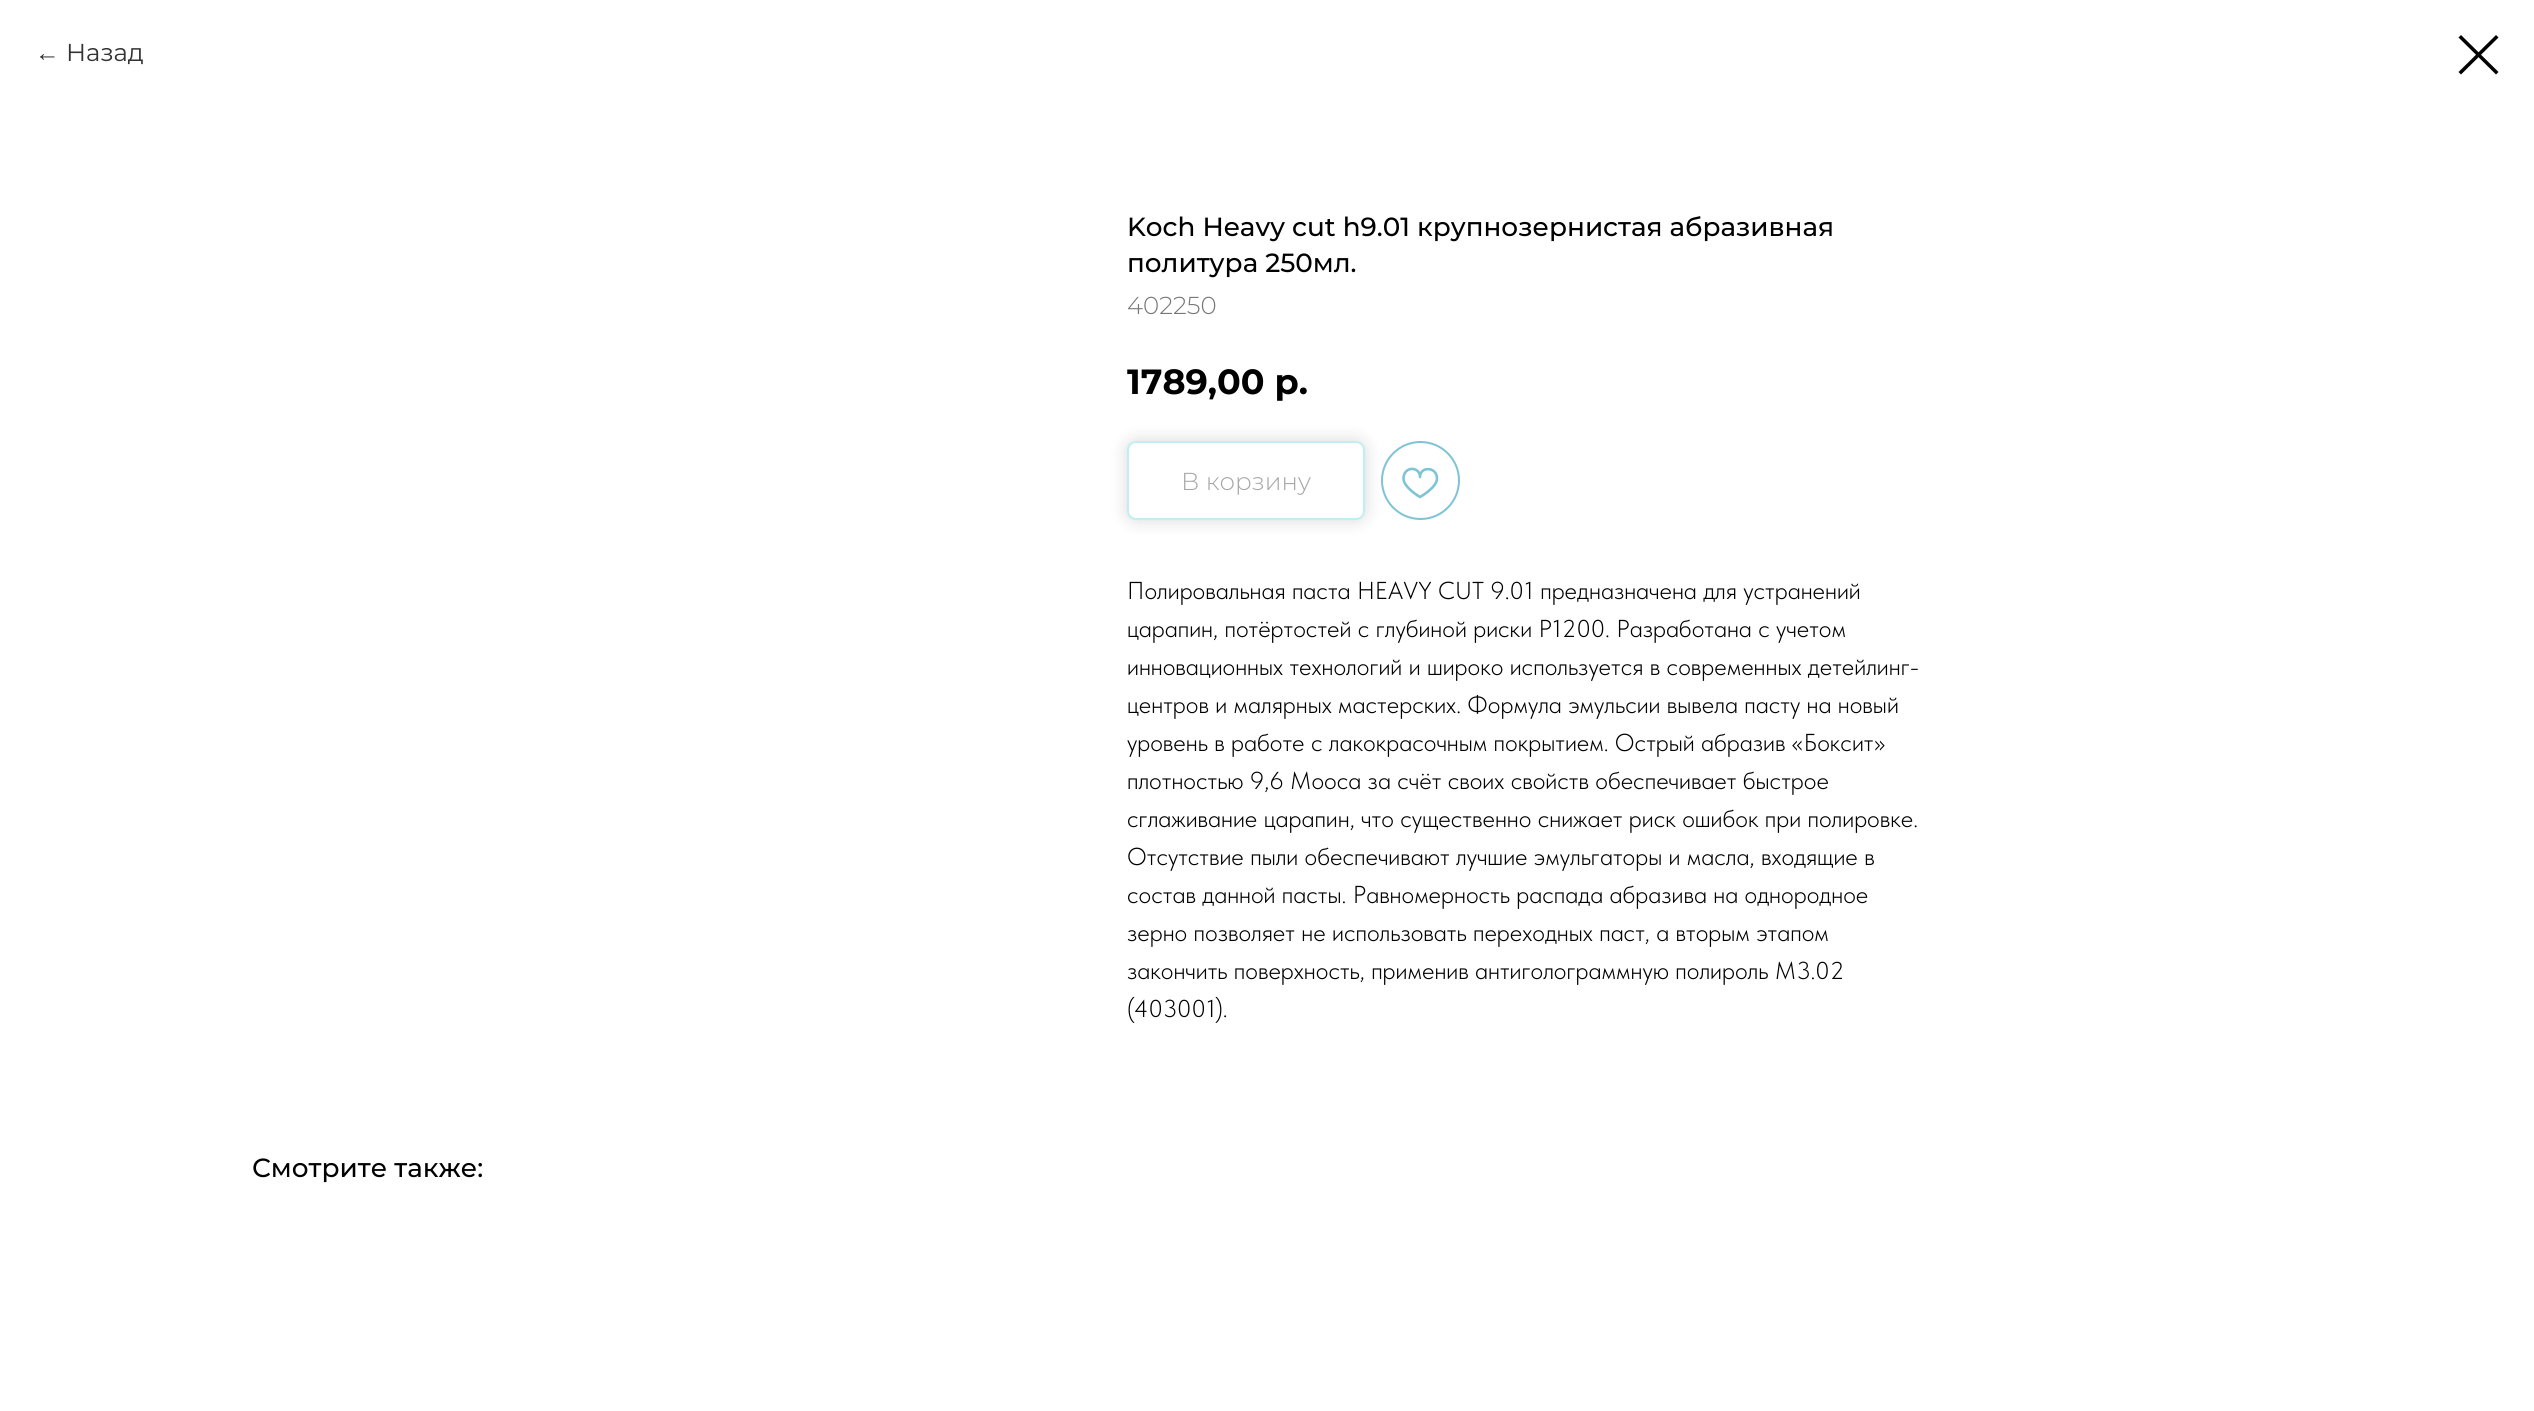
#include <cairo.h>
#include <math.h>
#include <stddef.h>


static void rgb(cairo_t *cr, int r, int g, int b)
{
	cairo_set_source_rgb(cr, r / 255.0, g / 255.0, b / 255.0);
}

static void face(cairo_t *cr, const char *family, double size, int italic, int bold)
{
	cairo_select_font_face(cr, family, italic ? CAIRO_FONT_SLANT_ITALIC : CAIRO_FONT_SLANT_NORMAL,
		bold ? CAIRO_FONT_WEIGHT_BOLD : CAIRO_FONT_WEIGHT_NORMAL);
	cairo_set_font_size(cr, size);
}

static void label(cairo_t *cr, double x, double y, const char *s)
{
	cairo_move_to(cr, x, y);
	cairo_show_text(cr, s);
}

static void rrect(cairo_t *cr, double x, double y, double w, double h, double r)
{
	cairo_new_sub_path(cr);
	cairo_arc(cr, x + w - r, y + h - r, r, 0, M_PI / 2);
	cairo_arc(cr, x + r, y + h - r, r, M_PI / 2, M_PI);
	cairo_arc(cr, x + r, y + r, r, M_PI, 1.5 * M_PI);
	cairo_arc(cr, x + w - r, y + r, r, 1.5 * M_PI, 2 * M_PI);
	cairo_close_path(cr);
}

static void soft_shadow(cairo_t *cr, double x, double y, double w, double h, double r, double blur, double alpha)
{
	cairo_push_group_with_content(cr, CAIRO_CONTENT_ALPHA);
	cairo_set_operator(cr, CAIRO_OPERATOR_SOURCE);
	for (int i = 15; i >= -15 && fmin(w, h) + blur * i / 3 > 0; i -= 2) {
		double e = blur * i / 6;
		cairo_set_source_rgba(cr, 0, 0, 0, alpha * erfc((i - 1) / 8.5) / 2);
		rrect(cr, x - e, y - e, w + 2 * e, h + 2 * e, fmax(0, fmin(r + e + blur * .6, fmin(w, h) / 2 + e)));
		cairo_fill(cr);
	}
	cairo_pattern_t *soft = cairo_pop_group(cr);
	cairo_mask(cr, soft);
	cairo_pattern_destroy(soft);
}

static void draw(cairo_t *cr) {
	rgb(cr, 255, 255, 255);
	cairo_paint(cr);
	face(cr, "Liberation Sans", 24.5, 0, 0);
	rgb(cr, 51, 51, 51);
	label(cr, 35, 61, "←");
	face(cr, "Montserrat", 24.5, 0, 0);
	label(cr, 66, 61, "Назад");
	rgb(cr, 0, 0, 0);
	cairo_set_fill_rule(cr, CAIRO_FILL_RULE_EVEN_ODD);
	cairo_new_path(cr);
	cairo_move_to(cr, 2458.5, 37.5);
	cairo_line_to(cr, 2461, 35);
	cairo_line_to(cr, 2498.5, 72);
	cairo_line_to(cr, 2496, 74.5);
	cairo_close_path(cr);
	cairo_fill(cr);
	cairo_new_path(cr);
	cairo_move_to(cr, 2496, 35);
	cairo_line_to(cr, 2498.5, 37.5);
	cairo_line_to(cr, 2461, 74.5);
	cairo_line_to(cr, 2458.5, 72);
	cairo_close_path(cr);
	cairo_fill(cr);
	face(cr, "Montserrat Medium", 26.25, 0, 0);
	label(cr, 1127, 236, "Koch Heavy cut h9.01 крупнозернистая абразивная");
	label(cr, 1127, 272, "политура 250мл.");
	face(cr, "Montserrat Light", 24.5, 0, 0);
	rgb(cr, 119, 119, 119);
	label(cr, 1127, 314, "402250");
	face(cr, "Montserrat", 35, 0, 1);
	rgb(cr, 0, 0, 0);
	label(cr, 1127, 394, "1789,00 р.");
	cairo_new_path(cr);
	cairo_arc(cr, 1420.5, 480.5, 38.5, 0, 2 * M_PI);
	rgb(cr, 126, 195, 214);
	cairo_stroke(cr);
	rgb(cr, 0, 0, 0);
	soft_shadow(cr, 1127, 441, 238, 79, 9, 9, 0.15);
	rgb(cr, 255, 255, 255);
	rrect(cr, 1128, 442, 236, 77, 8);
	cairo_fill_preserve(cr);
	rgb(cr, 192, 239, 243);
	cairo_stroke(cr);
	face(cr, "Montserrat Light", 24.5, 0, 0);
	rgb(cr, 166, 166, 166);
	label(cr, 1181, 490, "В корзину");
	cairo_new_path(cr);
	cairo_move_to(cr, 1437, 478.5);
	cairo_curve_to(cr, 1437, 487.5, 1420, 497, 1420, 497);
	cairo_curve_to(cr, 1420, 497, 1403.5, 487.5, 1403.5, 478.5);
	cairo_curve_to(cr, 1403.5, 466, 1420, 466, 1420, 477);
	cairo_curve_to(cr, 1420, 466, 1437, 466.5, 1437, 478.5);
	cairo_close_path(cr);
	rgb(cr, 126, 195, 214);
	cairo_set_line_width(cr, 2.6);
	cairo_set_line_join(cr, CAIRO_LINE_JOIN_ROUND);
	cairo_stroke(cr);
	face(cr, "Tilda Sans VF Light", 24.5, 0, 0);
	rgb(cr, 0, 0, 0);
	label(cr, 1127, 599, "Полировальная паста HEAVY CUT 9.01 предназначена для устранений");
	label(cr, 1127, 637, "царапин, потёртостей с глубиной риски P1200. Разработана с учетом");
	label(cr, 1127, 675, "инновационных технологий и широко используется в современных детейлинг-");
	label(cr, 1127, 713, "центров и малярных мастерских. Формула эмульсии вывела пасту на новый");
	label(cr, 1127, 751, "уровень в работе с лакокрасочным покрытием. Острый абразив «Боксит»");
	label(cr, 1127, 789, "плотностью 9,6 Мооса за счёт своих свойств обеспечивает быстрое");
	label(cr, 1127, 827, "сглаживание царапин, что существенно снижает риск ошибок при полировке.");
	label(cr, 1127, 865, "Отсутствие пыли обеспечивают лучшие эмульгаторы и масла, входящие в");
	label(cr, 1127, 903, "состав данной пасты. Равномерность распада абразива на однородное");
	label(cr, 1127, 941, "зерно позволяет не использовать переходных паст, а вторым этапом");
	label(cr, 1127, 979, "закончить поверхность, применив антиголограммную полироль М3.02");
	label(cr, 1127, 1017, "(403001).");
	face(cr, "Montserrat Medium", 26.25, 0, 0);
	label(cr, 252, 1177, "Смотрите также:");
}

int main(void) {
	cairo_surface_t *surface = cairo_image_surface_create(CAIRO_FORMAT_RGB24, 2534, 1411);
	cairo_t *cr = cairo_create(surface);
	cairo_font_options_t *options = cairo_font_options_create();
	cairo_font_options_set_hint_metrics(options, CAIRO_HINT_METRICS_OFF);
	cairo_font_options_set_hint_style(options, CAIRO_HINT_STYLE_NONE);
	cairo_set_font_options(cr, options);
	cairo_set_miter_limit(cr, 4);
	draw(cr);
	cairo_surface_write_to_png(surface, "render.png");
	cairo_font_options_destroy(options);
	cairo_destroy(cr);
	cairo_surface_destroy(surface);
	return 0;
}
